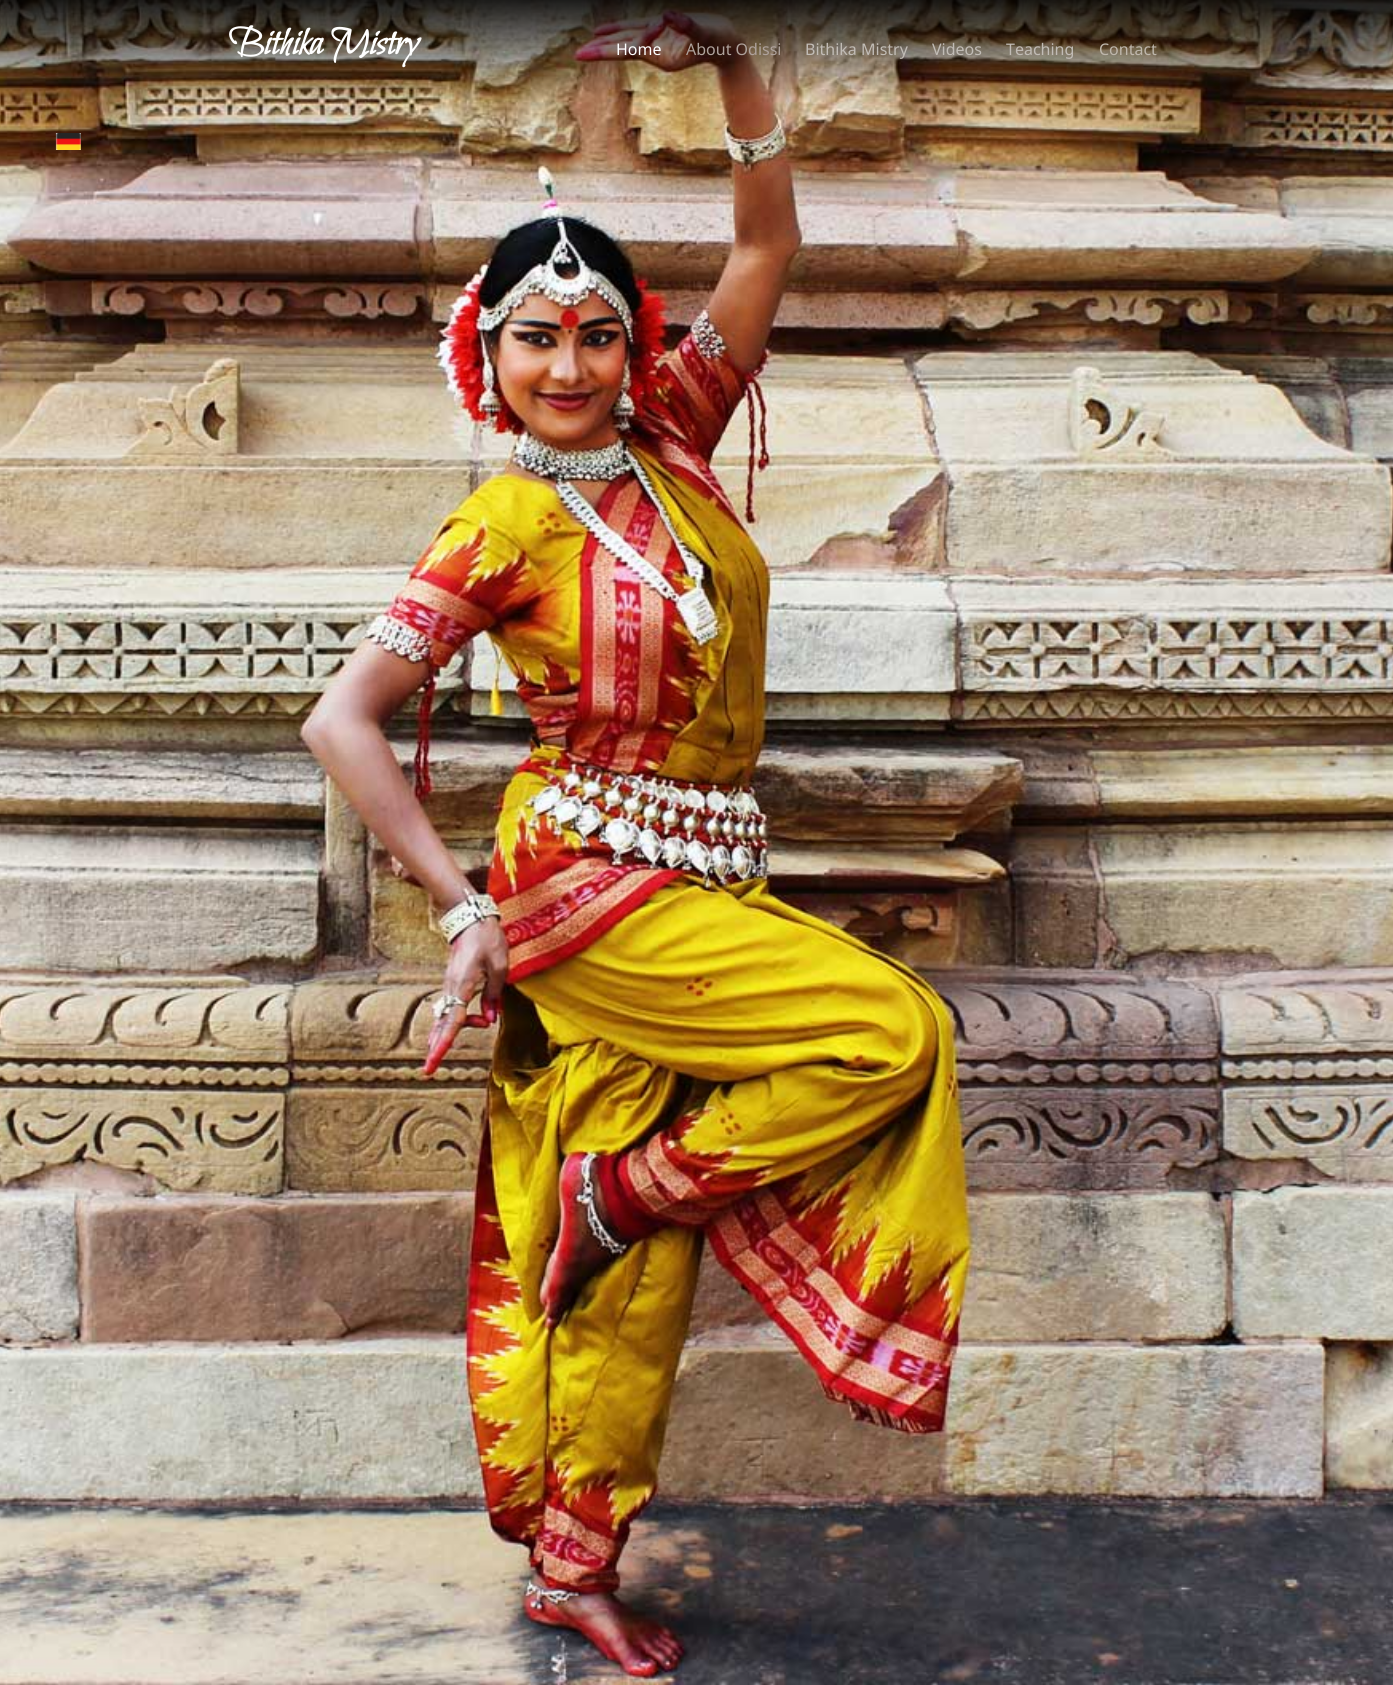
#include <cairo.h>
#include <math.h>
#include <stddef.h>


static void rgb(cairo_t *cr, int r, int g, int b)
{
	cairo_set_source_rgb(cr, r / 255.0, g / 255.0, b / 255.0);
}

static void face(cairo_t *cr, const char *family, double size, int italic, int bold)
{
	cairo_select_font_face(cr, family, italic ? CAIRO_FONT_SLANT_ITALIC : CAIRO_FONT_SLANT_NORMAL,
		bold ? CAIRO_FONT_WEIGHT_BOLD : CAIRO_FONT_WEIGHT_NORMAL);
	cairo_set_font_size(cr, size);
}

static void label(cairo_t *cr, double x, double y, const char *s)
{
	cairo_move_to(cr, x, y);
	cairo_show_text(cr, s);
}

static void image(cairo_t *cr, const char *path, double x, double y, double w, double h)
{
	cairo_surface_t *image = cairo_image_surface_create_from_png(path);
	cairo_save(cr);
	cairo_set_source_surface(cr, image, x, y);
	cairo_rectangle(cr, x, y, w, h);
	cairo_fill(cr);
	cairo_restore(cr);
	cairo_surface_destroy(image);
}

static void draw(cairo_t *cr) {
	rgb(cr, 255, 255, 255);
	cairo_paint(cr);
	image(cr, "image0.png", 0, 0, 1393, 1685);
	face(cr, "Bilbo Swash Caps", 40, 0, 1);
	rgb(cr, 255, 255, 255);
	label(cr, 229, 54, "Bithika Mistry");
	face(cr, "Noto Sans", 16, 0, 0);
	label(cr, 616, 55, "Home");
	rgb(cr, 174, 162, 156);
	label(cr, 686, 55, "About Odissi");
	rgb(cr, 193, 188, 182);
	label(cr, 805, 55, "Bithika Mistry");
	label(cr, 932, 55, "Videos");
	label(cr, 1006, 55, "Teaching");
	rgb(cr, 190, 183, 172);
	label(cr, 1099, 55, "Contact");
	image(cr, "image1.png", 55, 133, 26, 17);
}

int main(void) {
	cairo_surface_t *surface = cairo_image_surface_create(CAIRO_FORMAT_RGB24, 1393, 1685);
	cairo_t *cr = cairo_create(surface);
	cairo_font_options_t *options = cairo_font_options_create();
	cairo_font_options_set_hint_metrics(options, CAIRO_HINT_METRICS_OFF);
	cairo_font_options_set_hint_style(options, CAIRO_HINT_STYLE_NONE);
	cairo_set_font_options(cr, options);
	cairo_set_miter_limit(cr, 4);
	draw(cr);
	cairo_surface_write_to_png(surface, "render.png");
	cairo_font_options_destroy(options);
	cairo_destroy(cr);
	cairo_surface_destroy(surface);
	return 0;
}
